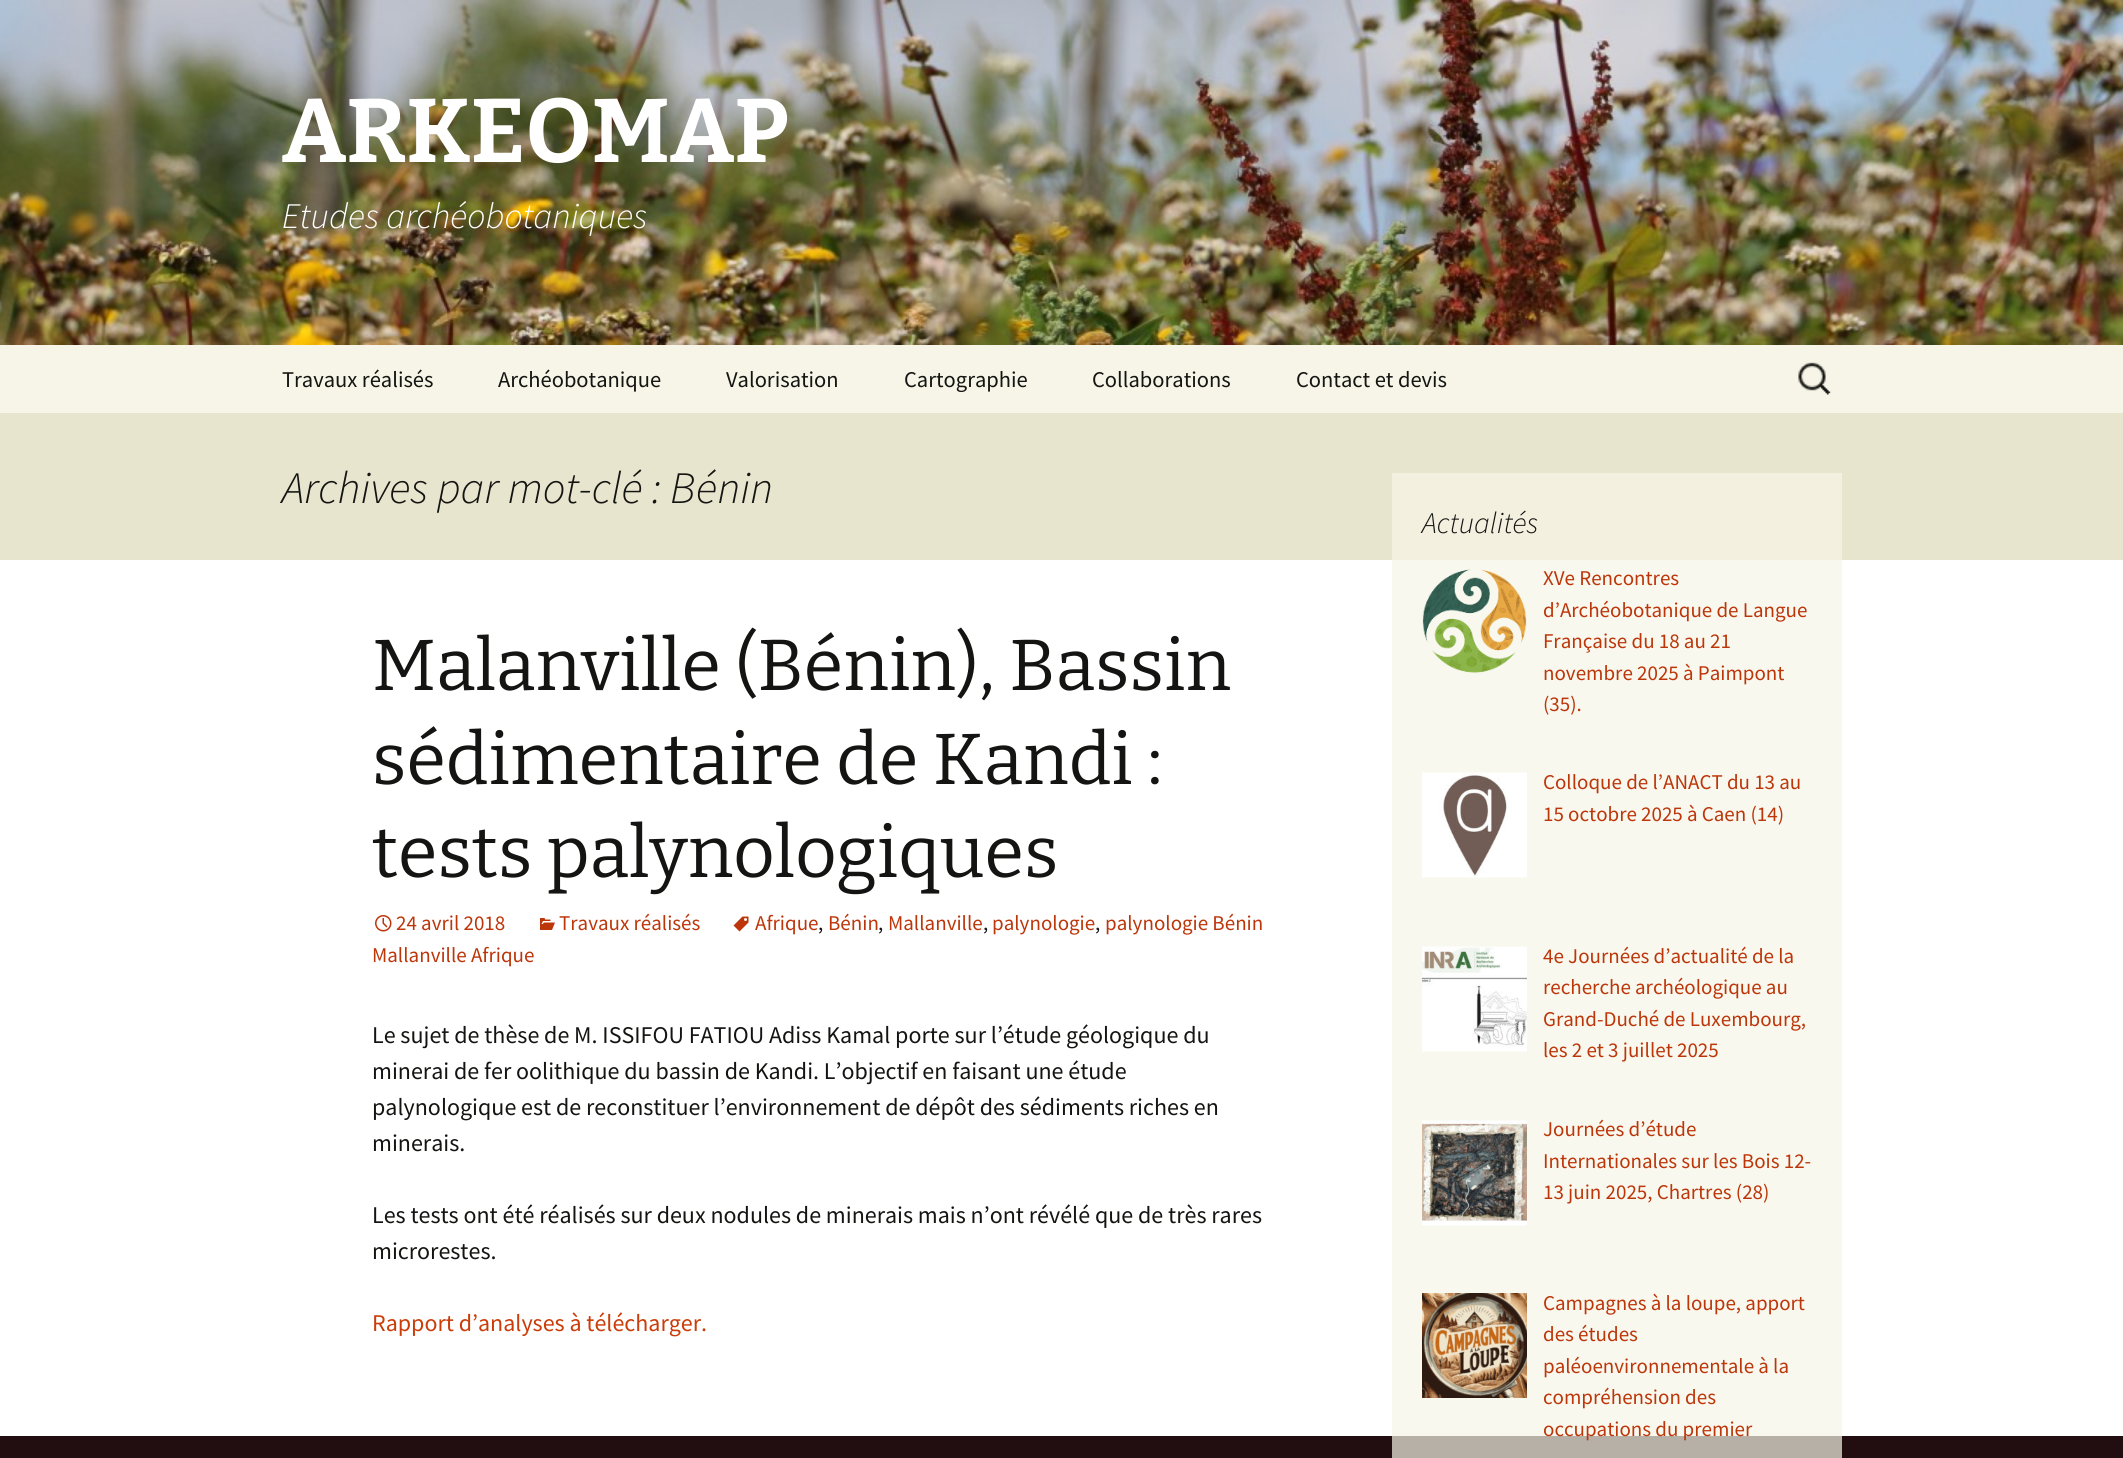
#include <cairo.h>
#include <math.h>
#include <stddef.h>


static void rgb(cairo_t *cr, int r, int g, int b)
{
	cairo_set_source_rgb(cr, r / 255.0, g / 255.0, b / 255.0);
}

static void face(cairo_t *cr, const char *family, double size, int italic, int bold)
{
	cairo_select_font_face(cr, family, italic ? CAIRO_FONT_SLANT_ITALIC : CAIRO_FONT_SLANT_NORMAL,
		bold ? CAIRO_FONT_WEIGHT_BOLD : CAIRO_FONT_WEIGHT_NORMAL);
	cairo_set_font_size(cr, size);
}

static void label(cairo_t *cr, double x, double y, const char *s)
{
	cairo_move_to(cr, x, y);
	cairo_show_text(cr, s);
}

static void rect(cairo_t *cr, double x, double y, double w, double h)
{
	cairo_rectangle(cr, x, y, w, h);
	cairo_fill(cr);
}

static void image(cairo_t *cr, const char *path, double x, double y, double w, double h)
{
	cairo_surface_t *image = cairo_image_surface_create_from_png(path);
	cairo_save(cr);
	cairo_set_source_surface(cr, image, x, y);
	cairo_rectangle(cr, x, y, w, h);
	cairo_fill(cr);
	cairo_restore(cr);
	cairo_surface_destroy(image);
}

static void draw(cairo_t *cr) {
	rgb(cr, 255, 255, 255);
	cairo_paint(cr);
	rgb(cr, 249, 248, 238);
	rect(cr, 1392, 560, 450, 876);
	image(cr, "image0.png", 0, 0, 2123, 345);
	face(cr, "Bitter Thin", 90, 0, 0);
	rgb(cr, 255, 255, 255);
	label(cr, 282, 162, "ARKEOMAP");
	face(cr, "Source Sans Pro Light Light", 36, 1, 0);
	label(cr, 282, 228, "Etudes archéobotaniques");
	rgb(cr, 247, 245, 231);
	rect(cr, 0, 345, 2123, 68);
	face(cr, "Source Sans Pro", 22.5, 0, 0);
	rgb(cr, 20, 20, 18);
	label(cr, 282, 387, "Travaux réalisés");
	label(cr, 498, 387, "Archéobotanique");
	label(cr, 726, 387, "Valorisation");
	label(cr, 904, 387, "Cartographie");
	label(cr, 1092, 387, "Collaborations");
	label(cr, 1296, 387, "Contact et devis");
	image(cr, "image1.png", 1798, 362, 33, 33);
	rgb(cr, 232, 229, 206);
	rect(cr, 0, 413, 2123, 147);
	rgb(cr, 243, 240, 224);
	rect(cr, 1392, 473, 450, 87);
	face(cr, "Source Sans Pro Light Light", 45, 1, 0);
	rgb(cr, 20, 20, 18);
	label(cr, 282, 503, "Archives par mot-clé : Bénin");
	face(cr, "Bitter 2 Thin", 72, 0, 0);
	label(cr, 372, 690, "Malanville (Bénin), Bassin");
	label(cr, 372, 784, "sédimentaire de Kandi :");
	label(cr, 372, 877, "tests palynologiques");
	image(cr, "image2.png", 733, 916, 16, 16);
	face(cr, "Source Sans Pro", 21, 0, 0);
	rgb(cr, 188, 54, 10);
	label(cr, 755, 930, "Afrique");
	rgb(cr, 20, 20, 18);
	label(cr, 818, 930, ",");
	rgb(cr, 188, 54, 10);
	label(cr, 828, 930, "Bénin");
	rgb(cr, 20, 20, 18);
	label(cr, 878, 930, ",");
	rgb(cr, 188, 54, 10);
	label(cr, 888, 930, "Mallanville");
	rgb(cr, 20, 20, 18);
	label(cr, 983, 930, ",");
	rgb(cr, 188, 54, 10);
	label(cr, 992, 930, "palynologie");
	rgb(cr, 20, 20, 18);
	label(cr, 1095, 930, ",");
	rgb(cr, 188, 54, 10);
	label(cr, 1105, 930, "palynologie Bénin");
	label(cr, 372, 962, "Mallanville Afrique");
	image(cr, "image3.png", 375, 915, 17, 17);
	label(cr, 396, 930, "24 avril 2018");
	image(cr, "image4.png", 540, 918, 15, 12);
	label(cr, 559, 930, "Travaux réalisés");
	face(cr, "Source Sans Pro", 24, 0, 0);
	rgb(cr, 20, 20, 18);
	label(cr, 372, 1043, "Le sujet de thèse de M. ISSIFOU FATIOU Adiss Kamal porte sur l’étude géologique du");
	label(cr, 372, 1079, "minerai de fer oolithique du bassin de Kandi. L’objectif en faisant une étude");
	label(cr, 372, 1115, "palynologique est de reconstituer l’environnement de dépôt des sédiments riches en");
	label(cr, 372, 1151, "minerais.");
	label(cr, 372, 1223, "Les tests ont été réalisés sur deux nodules de minerais mais n’ont révélé que de très rares");
	label(cr, 372, 1259, "microrestes.");
	rgb(cr, 202, 60, 8);
	label(cr, 372, 1331, "Rapport d’analyses à télécharger.");
	face(cr, "Source Sans Pro Light Light", 30, 1, 0);
	rgb(cr, 20, 20, 18);
	label(cr, 1422, 533, "Actualités");
	image(cr, "image5.png", 1422, 569, 105, 104);
	face(cr, "Source Sans Pro", 21, 0, 0);
	rgb(cr, 188, 54, 10);
	label(cr, 1543, 585, "XVe Rencontres");
	label(cr, 1543, 617, "d’Archéobotanique de Langue");
	label(cr, 1543, 648, "Française du 18 au 21");
	label(cr, 1543, 680, "novembre 2025 à Paimpont");
	label(cr, 1543, 711, "(35).");
	image(cr, "image6.png", 1422, 772, 105, 106);
	label(cr, 1543, 789, "Colloque de l’ANACT du 13 au");
	label(cr, 1543, 821, "15 octobre 2025 à Caen (14)");
	image(cr, "image7.png", 1422, 946, 105, 106);
	label(cr, 1543, 963, "4e Journées d’actualité de la");
	label(cr, 1543, 994, "recherche archéologique au");
	label(cr, 1543, 1026, "Grand-Duché de Luxembourg,");
	label(cr, 1543, 1057, "les 2 et 3 juillet 2025");
	image(cr, "image8.png", 1422, 1120, 105, 106);
	label(cr, 1543, 1136, "Journées d’étude");
	label(cr, 1543, 1168, "Internationales sur les Bois 12-");
	label(cr, 1543, 1199, "13 juin 2025, Chartres (28)");
	image(cr, "image9.png", 1422, 1293, 105, 105);
	label(cr, 1543, 1310, "Campagnes à la loupe, apport");
	label(cr, 1543, 1341, "des études");
	label(cr, 1543, 1373, "paléoenvironnementale à la");
	label(cr, 1543, 1404, "compréhension des");
	rgb(cr, 34, 14, 16);
	rect(cr, 0, 1436, 2123, 22);
	rgb(cr, 183, 176, 167);
	rect(cr, 1392, 1436, 450, 22);
	rgb(cr, 188, 54, 10);
	label(cr, 1543, 1436, "occupations du premier");
}

int main(void) {
	cairo_surface_t *surface = cairo_image_surface_create(CAIRO_FORMAT_RGB24, 2123, 1458);
	cairo_t *cr = cairo_create(surface);
	cairo_font_options_t *options = cairo_font_options_create();
	cairo_font_options_set_hint_metrics(options, CAIRO_HINT_METRICS_OFF);
	cairo_font_options_set_hint_style(options, CAIRO_HINT_STYLE_NONE);
	cairo_set_font_options(cr, options);
	cairo_set_miter_limit(cr, 4);
	draw(cr);
	cairo_surface_write_to_png(surface, "render.png");
	cairo_font_options_destroy(options);
	cairo_destroy(cr);
	cairo_surface_destroy(surface);
	return 0;
}
